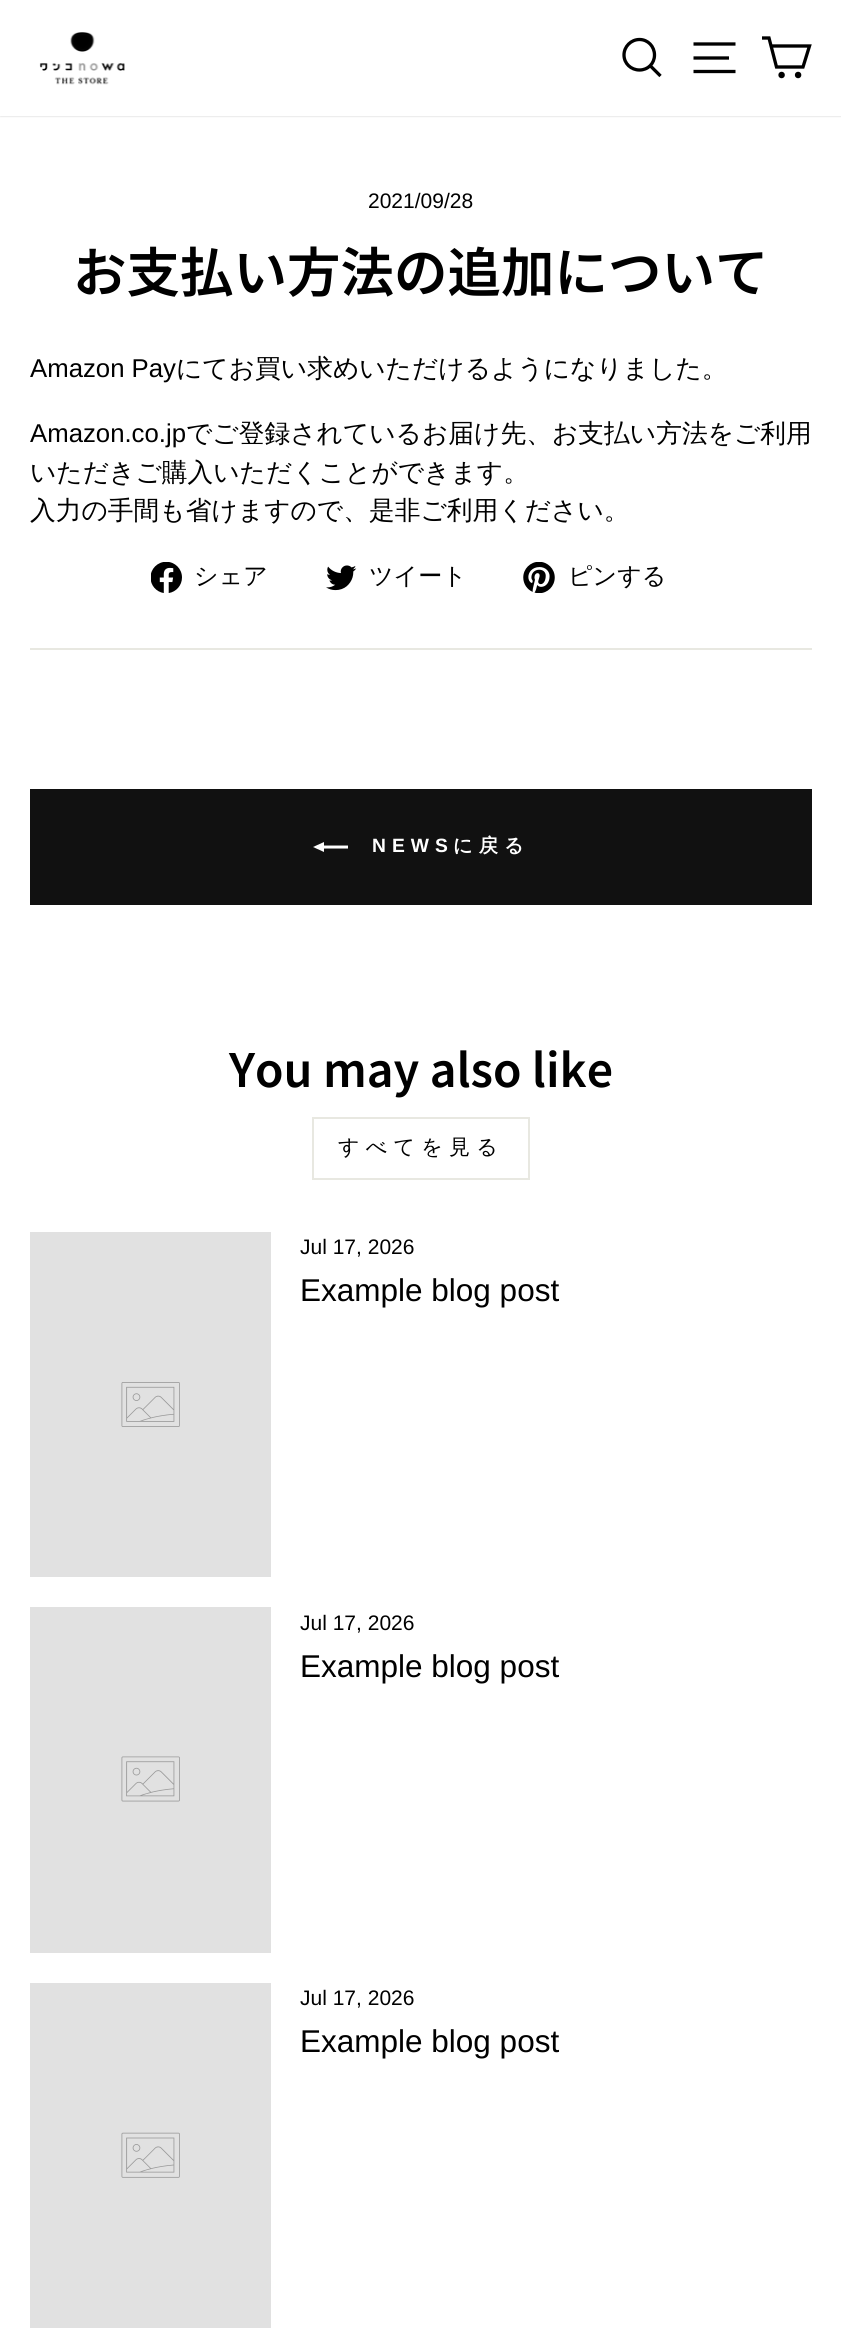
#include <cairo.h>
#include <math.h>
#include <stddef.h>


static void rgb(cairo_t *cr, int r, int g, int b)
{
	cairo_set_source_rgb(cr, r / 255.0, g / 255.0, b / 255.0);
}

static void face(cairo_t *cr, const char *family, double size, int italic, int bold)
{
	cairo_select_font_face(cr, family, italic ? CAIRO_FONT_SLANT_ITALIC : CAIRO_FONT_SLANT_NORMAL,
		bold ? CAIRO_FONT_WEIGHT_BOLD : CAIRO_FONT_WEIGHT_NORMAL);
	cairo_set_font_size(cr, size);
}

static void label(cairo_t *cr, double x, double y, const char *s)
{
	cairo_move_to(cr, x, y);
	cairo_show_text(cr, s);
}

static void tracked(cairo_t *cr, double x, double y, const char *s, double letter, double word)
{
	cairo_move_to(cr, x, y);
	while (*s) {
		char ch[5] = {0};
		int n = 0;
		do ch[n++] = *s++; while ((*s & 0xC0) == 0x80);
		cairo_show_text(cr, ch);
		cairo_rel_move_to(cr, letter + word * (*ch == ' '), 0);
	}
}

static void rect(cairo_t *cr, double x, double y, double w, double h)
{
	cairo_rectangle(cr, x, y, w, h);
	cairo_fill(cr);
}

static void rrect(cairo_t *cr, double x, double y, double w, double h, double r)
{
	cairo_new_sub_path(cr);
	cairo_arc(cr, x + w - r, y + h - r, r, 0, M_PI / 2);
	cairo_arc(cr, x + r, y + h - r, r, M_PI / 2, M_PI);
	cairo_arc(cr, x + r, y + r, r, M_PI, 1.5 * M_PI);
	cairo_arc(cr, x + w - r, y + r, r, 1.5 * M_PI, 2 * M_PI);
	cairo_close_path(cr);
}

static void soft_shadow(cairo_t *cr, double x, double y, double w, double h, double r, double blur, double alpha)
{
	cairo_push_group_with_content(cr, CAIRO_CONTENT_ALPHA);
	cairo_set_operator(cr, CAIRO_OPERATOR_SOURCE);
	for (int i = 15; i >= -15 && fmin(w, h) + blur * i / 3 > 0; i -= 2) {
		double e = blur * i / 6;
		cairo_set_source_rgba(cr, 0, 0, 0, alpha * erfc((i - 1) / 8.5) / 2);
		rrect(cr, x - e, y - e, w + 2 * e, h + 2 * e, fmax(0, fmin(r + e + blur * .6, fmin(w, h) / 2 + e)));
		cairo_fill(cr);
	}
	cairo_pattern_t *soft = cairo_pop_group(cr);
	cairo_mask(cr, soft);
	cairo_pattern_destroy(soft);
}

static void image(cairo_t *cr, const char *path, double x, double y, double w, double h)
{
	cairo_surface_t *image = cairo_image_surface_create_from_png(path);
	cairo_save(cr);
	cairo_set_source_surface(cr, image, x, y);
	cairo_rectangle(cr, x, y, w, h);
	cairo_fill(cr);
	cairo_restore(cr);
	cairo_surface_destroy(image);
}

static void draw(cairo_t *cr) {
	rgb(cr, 255, 255, 255);
	cairo_paint(cr);
	rgb(cr, 0, 0, 0);
	soft_shadow(cr, 0, 0, 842, 116, 0, 1, 0.2);
	rgb(cr, 255, 255, 255);
	rect(cr, 0, 0, 841, 116);
	image(cr, "image0.png", 39, 32, 86, 53);
	cairo_new_path(cr);
	cairo_move_to(cr, 654.5, 55);
	cairo_curve_to(cr, 654.5, 63.5, 648, 70, 639.5, 70);
	cairo_curve_to(cr, 631, 70, 624, 63.5, 624, 55);
	cairo_curve_to(cr, 624, 46.5, 631, 39.5, 639.5, 39.5);
	cairo_curve_to(cr, 648, 39.5, 654.5, 46.5, 654.5, 55);
	cairo_close_path(cr);
	cairo_move_to(cr, 660.5, 76);
	cairo_line_to(cr, 650.5, 66);
	rgb(cr, 0, 0, 0);
	cairo_set_line_width(cr, 3.3);
	cairo_stroke(cr);
	cairo_new_path(cr);
	cairo_move_to(cr, 693.5, 44);
	cairo_line_to(cr, 735.5, 44);
	cairo_move_to(cr, 693.5, 58);
	cairo_line_to(cr, 729, 58);
	cairo_move_to(cr, 693.5, 71.5);
	cairo_line_to(cr, 735.5, 71.5);
	cairo_stroke(cr);
	cairo_new_path(cr);
	cairo_move_to(cr, 771, 46);
	cairo_line_to(cr, 809.5, 46);
	cairo_line_to(cr, 803, 67);
	cairo_line_to(cr, 776.5, 67);
	cairo_line_to(cr, 769, 38);
	cairo_line_to(cr, 762, 38);
	cairo_stroke(cr);
	cairo_arc(cr, 781.6, 75, 1.6, 0, 2 * M_PI);
	cairo_stroke(cr);
	cairo_arc(cr, 798.1, 75, 1.6, 0, 2 * M_PI);
	cairo_stroke(cr);
	face(cr, "Liberation Sans", 21, 0, 0);
	label(cr, 368, 208, "2021/09/28");
	face(cr, "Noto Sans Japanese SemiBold", 53.5, 0, 0);
	label(cr, 73, 292, "お支払い方法の追加について");
	face(cr, "Liberation Sans", 25.75, 0, 0);
	label(cr, 30, 377, "Amazon Pay");
	face(cr, "WenQuanYi Zen Hei Medium", 25.75, 0, 0);
	label(cr, 176, 377, "にてお買い求めいただけるようになりました。");
	face(cr, "Liberation Sans", 25.75, 0, 0);
	label(cr, 30, 442, "Amazon.co.jp");
	face(cr, "WenQuanYi Zen Hei Medium", 25.75, 0, 0);
	label(cr, 186, 442, "でご登録されているお届け先、お支払い方法をご利用");
	label(cr, 30, 481, "いただきご購入いただくことができます。");
	label(cr, 30, 519, "入力の手間も省けますので、是非ご利用ください。");
	image(cr, "image1.png", 151, 562, 31, 31);
	face(cr, "WenQuanYi Zen Hei Medium", 24, 0, 0);
	label(cr, 194, 584, "シェア");
	image(cr, "image2.png", 326, 565, 31, 26);
	label(cr, 369, 584, "ツイート");
	image(cr, "image3.png", 523, 562, 32, 31);
	label(cr, 568, 584, "ピンする");
	rgb(cr, 232, 232, 225);
	rect(cr, 30, 648, 782, 2);
	rgb(cr, 17, 17, 17);
	rect(cr, 30, 789, 782, 116);
	rgb(cr, 255, 255, 255);
	cairo_new_path(cr);
	cairo_move_to(cr, 348, 845.5);
	cairo_line_to(cr, 348, 848.5);
	cairo_line_to(cr, 324, 848.5);
	cairo_line_to(cr, 324, 852);
	cairo_line_to(cr, 313, 847);
	cairo_line_to(cr, 324, 842);
	cairo_line_to(cr, 324, 845.5);
	cairo_close_path(cr);
	cairo_fill(cr);
	face(cr, "Liberation Sans", 19.25, 0, 1);
	tracked(cr, 372, 852, "NEWS", 6, 0);
	face(cr, "WenQuanYi Zen Hei", 19.25, 0, 1);
	tracked(cr, 453, 852, "に戻る", 6, 0);
	face(cr, "Noto Sans Japanese SemiBold", 46, 0, 0);
	rgb(cr, 0, 0, 0);
	label(cr, 229, 1087, "You may also like");
	cairo_rectangle(cr, 313, 1118, 216, 61);
	rgb(cr, 232, 232, 225);
	cairo_set_line_width(cr, 2);
	cairo_stroke(cr);
	face(cr, "WenQuanYi Zen Hei Medium", 21, 0, 0);
	rgb(cr, 0, 0, 0);
	tracked(cr, 338, 1154, "すべてを見る", 6.25, 0);
	rgb(cr, 225, 225, 225);
	rect(cr, 30, 1232, 241, 345);
	image(cr, "image4.png", 121, 1382, 59, 45);
	face(cr, "Liberation Sans", 21, 0, 0);
	rgb(cr, 0, 0, 0);
	label(cr, 300, 1254, "Jul 17, 2026");
	face(cr, "Liberation Sans", 31.5, 0, 0);
	label(cr, 300, 1301, "Example blog post");
	rgb(cr, 225, 225, 225);
	rect(cr, 30, 1607, 241, 346);
	image(cr, "image5.png", 121, 1756, 59, 46);
	face(cr, "Liberation Sans", 21, 0, 0);
	rgb(cr, 0, 0, 0);
	label(cr, 300, 1630, "Jul 17, 2026");
	face(cr, "Liberation Sans", 31.5, 0, 0);
	label(cr, 300, 1677, "Example blog post");
	rgb(cr, 225, 225, 225);
	rect(cr, 30, 1983, 241, 345);
	image(cr, "image6.png", 121, 2132, 59, 46);
	face(cr, "Liberation Sans", 21, 0, 0);
	rgb(cr, 0, 0, 0);
	label(cr, 300, 2005, "Jul 17, 2026");
	face(cr, "Liberation Sans", 31.5, 0, 0);
	label(cr, 300, 2052, "Example blog post");
}

int main(void) {
	cairo_surface_t *surface = cairo_image_surface_create(CAIRO_FORMAT_RGB24, 841, 2337);
	cairo_t *cr = cairo_create(surface);
	cairo_font_options_t *options = cairo_font_options_create();
	cairo_font_options_set_hint_metrics(options, CAIRO_HINT_METRICS_OFF);
	cairo_font_options_set_hint_style(options, CAIRO_HINT_STYLE_NONE);
	cairo_set_font_options(cr, options);
	cairo_set_miter_limit(cr, 4);
	draw(cr);
	cairo_surface_write_to_png(surface, "render.png");
	cairo_font_options_destroy(options);
	cairo_destroy(cr);
	cairo_surface_destroy(surface);
	return 0;
}
